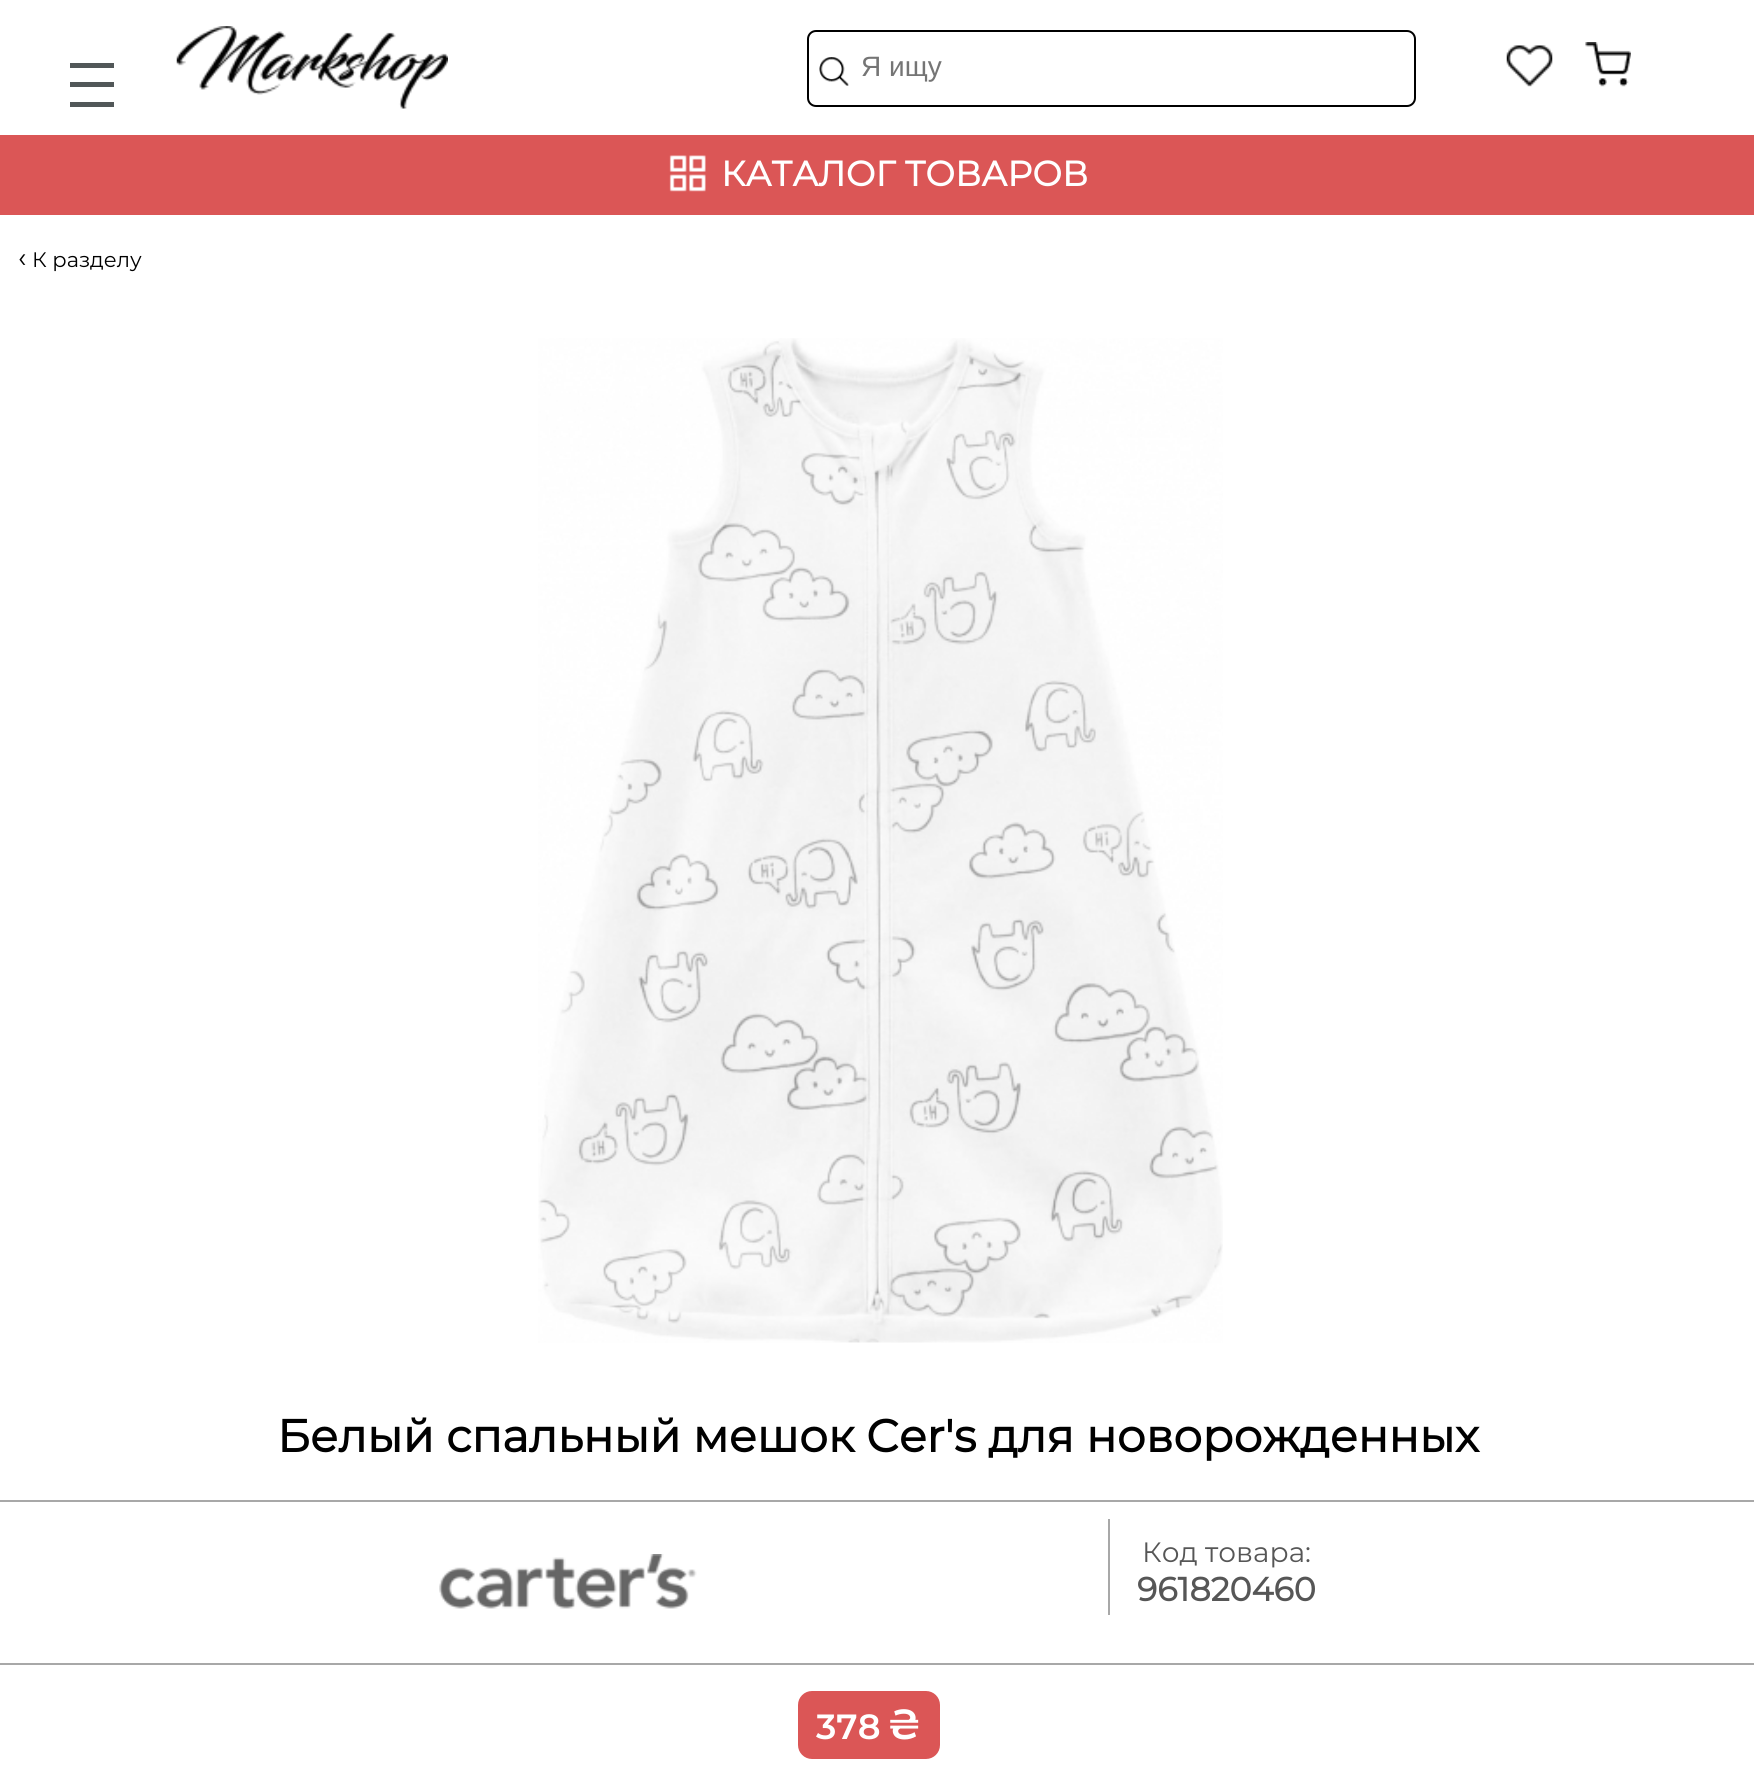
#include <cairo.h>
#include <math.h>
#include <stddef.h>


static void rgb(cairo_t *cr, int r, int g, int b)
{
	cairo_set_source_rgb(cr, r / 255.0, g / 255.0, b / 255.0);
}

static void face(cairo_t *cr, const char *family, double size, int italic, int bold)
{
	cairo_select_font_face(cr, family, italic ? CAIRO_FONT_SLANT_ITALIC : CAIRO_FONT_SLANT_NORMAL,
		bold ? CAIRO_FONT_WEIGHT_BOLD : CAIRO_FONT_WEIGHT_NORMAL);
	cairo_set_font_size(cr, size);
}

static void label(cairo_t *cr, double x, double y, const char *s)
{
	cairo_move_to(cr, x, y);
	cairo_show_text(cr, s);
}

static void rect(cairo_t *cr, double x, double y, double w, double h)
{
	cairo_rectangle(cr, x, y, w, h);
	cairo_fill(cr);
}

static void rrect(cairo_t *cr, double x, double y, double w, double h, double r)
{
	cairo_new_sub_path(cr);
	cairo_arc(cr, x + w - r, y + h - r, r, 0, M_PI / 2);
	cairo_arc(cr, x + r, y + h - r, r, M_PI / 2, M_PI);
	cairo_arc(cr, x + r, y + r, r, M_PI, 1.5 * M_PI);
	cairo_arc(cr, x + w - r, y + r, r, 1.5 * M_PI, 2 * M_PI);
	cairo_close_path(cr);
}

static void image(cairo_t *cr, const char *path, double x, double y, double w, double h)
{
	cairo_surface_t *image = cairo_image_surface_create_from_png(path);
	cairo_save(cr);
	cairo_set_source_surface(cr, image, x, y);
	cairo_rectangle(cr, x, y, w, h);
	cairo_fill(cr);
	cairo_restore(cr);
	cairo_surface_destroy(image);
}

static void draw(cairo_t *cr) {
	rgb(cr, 255, 255, 255);
	cairo_paint(cr);
	rgb(cr, 81, 87, 88);
	rect(cr, 70, 63, 44, 5);
	rect(cr, 70, 82, 44, 5);
	rect(cr, 70, 102, 44, 5);
	image(cr, "image0.png", 176, 26, 272, 83);
	rrect(cr, 808, 31, 607, 75, 8);
	rgb(cr, 0, 0, 0);
	cairo_stroke(cr);
	image(cr, "image1.png", 819, 57, 30, 29);
	face(cr, "Liberation Sans", 28, 0, 0);
	rgb(cr, 117, 117, 117);
	label(cr, 861, 76, "Я ищу");
	image(cr, "image2.png", 1506, 45, 47, 42);
	image(cr, "image3.png", 1585, 42, 46, 45);
	rgb(cr, 219, 86, 86);
	rect(cr, 0, 135, 1754, 80);
	image(cr, "image4.png", 669, 155, 37, 37);
	face(cr, "Montserrat", 35, 0, 1);
	rgb(cr, 255, 255, 255);
	label(cr, 721, 186, "КАТАЛОГ ТОВАРОВ");
	face(cr, "Montserrat", 28, 0, 0);
	rgb(cr, 0, 0, 0);
	label(cr, 18, 267, "‹");
	face(cr, "Montserrat", 21, 0, 0);
	label(cr, 32, 267, "К разделу");
	image(cr, "image5.png", 538, 338, 685, 1005);
	face(cr, "Montserrat", 45.5, 0, 1);
	label(cr, 277, 1452, "Белый спальный мешок Cer's для новорожденных");
	rgb(cr, 168, 168, 168);
	rect(cr, 0, 1500, 1754, 2);
	rect(cr, 0, 1663, 1754, 2);
	image(cr, "image6.png", 439, 1554, 258, 55);
	rect(cr, 1108, 1519, 2, 96);
	face(cr, "Montserrat", 28, 0, 0);
	rgb(cr, 86, 86, 86);
	label(cr, 1142, 1562, "Код товара:");
	face(cr, "Montserrat", 33.25, 0, 1);
	label(cr, 1137, 1601, "961820460");
	rgb(cr, 219, 86, 86);
	rrect(cr, 798, 1691, 142, 68, 14);
	cairo_fill(cr);
	face(cr, "Montserrat SemiBold", 35, 0, 0);
	rgb(cr, 255, 255, 255);
	label(cr, 816, 1739, "378");
	face(cr, "Montserrat SemiBold", 42, 0, 0);
	label(cr, 887, 1739, "₴");
}

int main(void) {
	cairo_surface_t *surface = cairo_image_surface_create(CAIRO_FORMAT_RGB24, 1754, 1776);
	cairo_t *cr = cairo_create(surface);
	cairo_font_options_t *options = cairo_font_options_create();
	cairo_font_options_set_hint_metrics(options, CAIRO_HINT_METRICS_OFF);
	cairo_font_options_set_hint_style(options, CAIRO_HINT_STYLE_NONE);
	cairo_set_font_options(cr, options);
	cairo_set_miter_limit(cr, 4);
	draw(cr);
	cairo_surface_write_to_png(surface, "render.png");
	cairo_font_options_destroy(options);
	cairo_destroy(cr);
	cairo_surface_destroy(surface);
	return 0;
}
